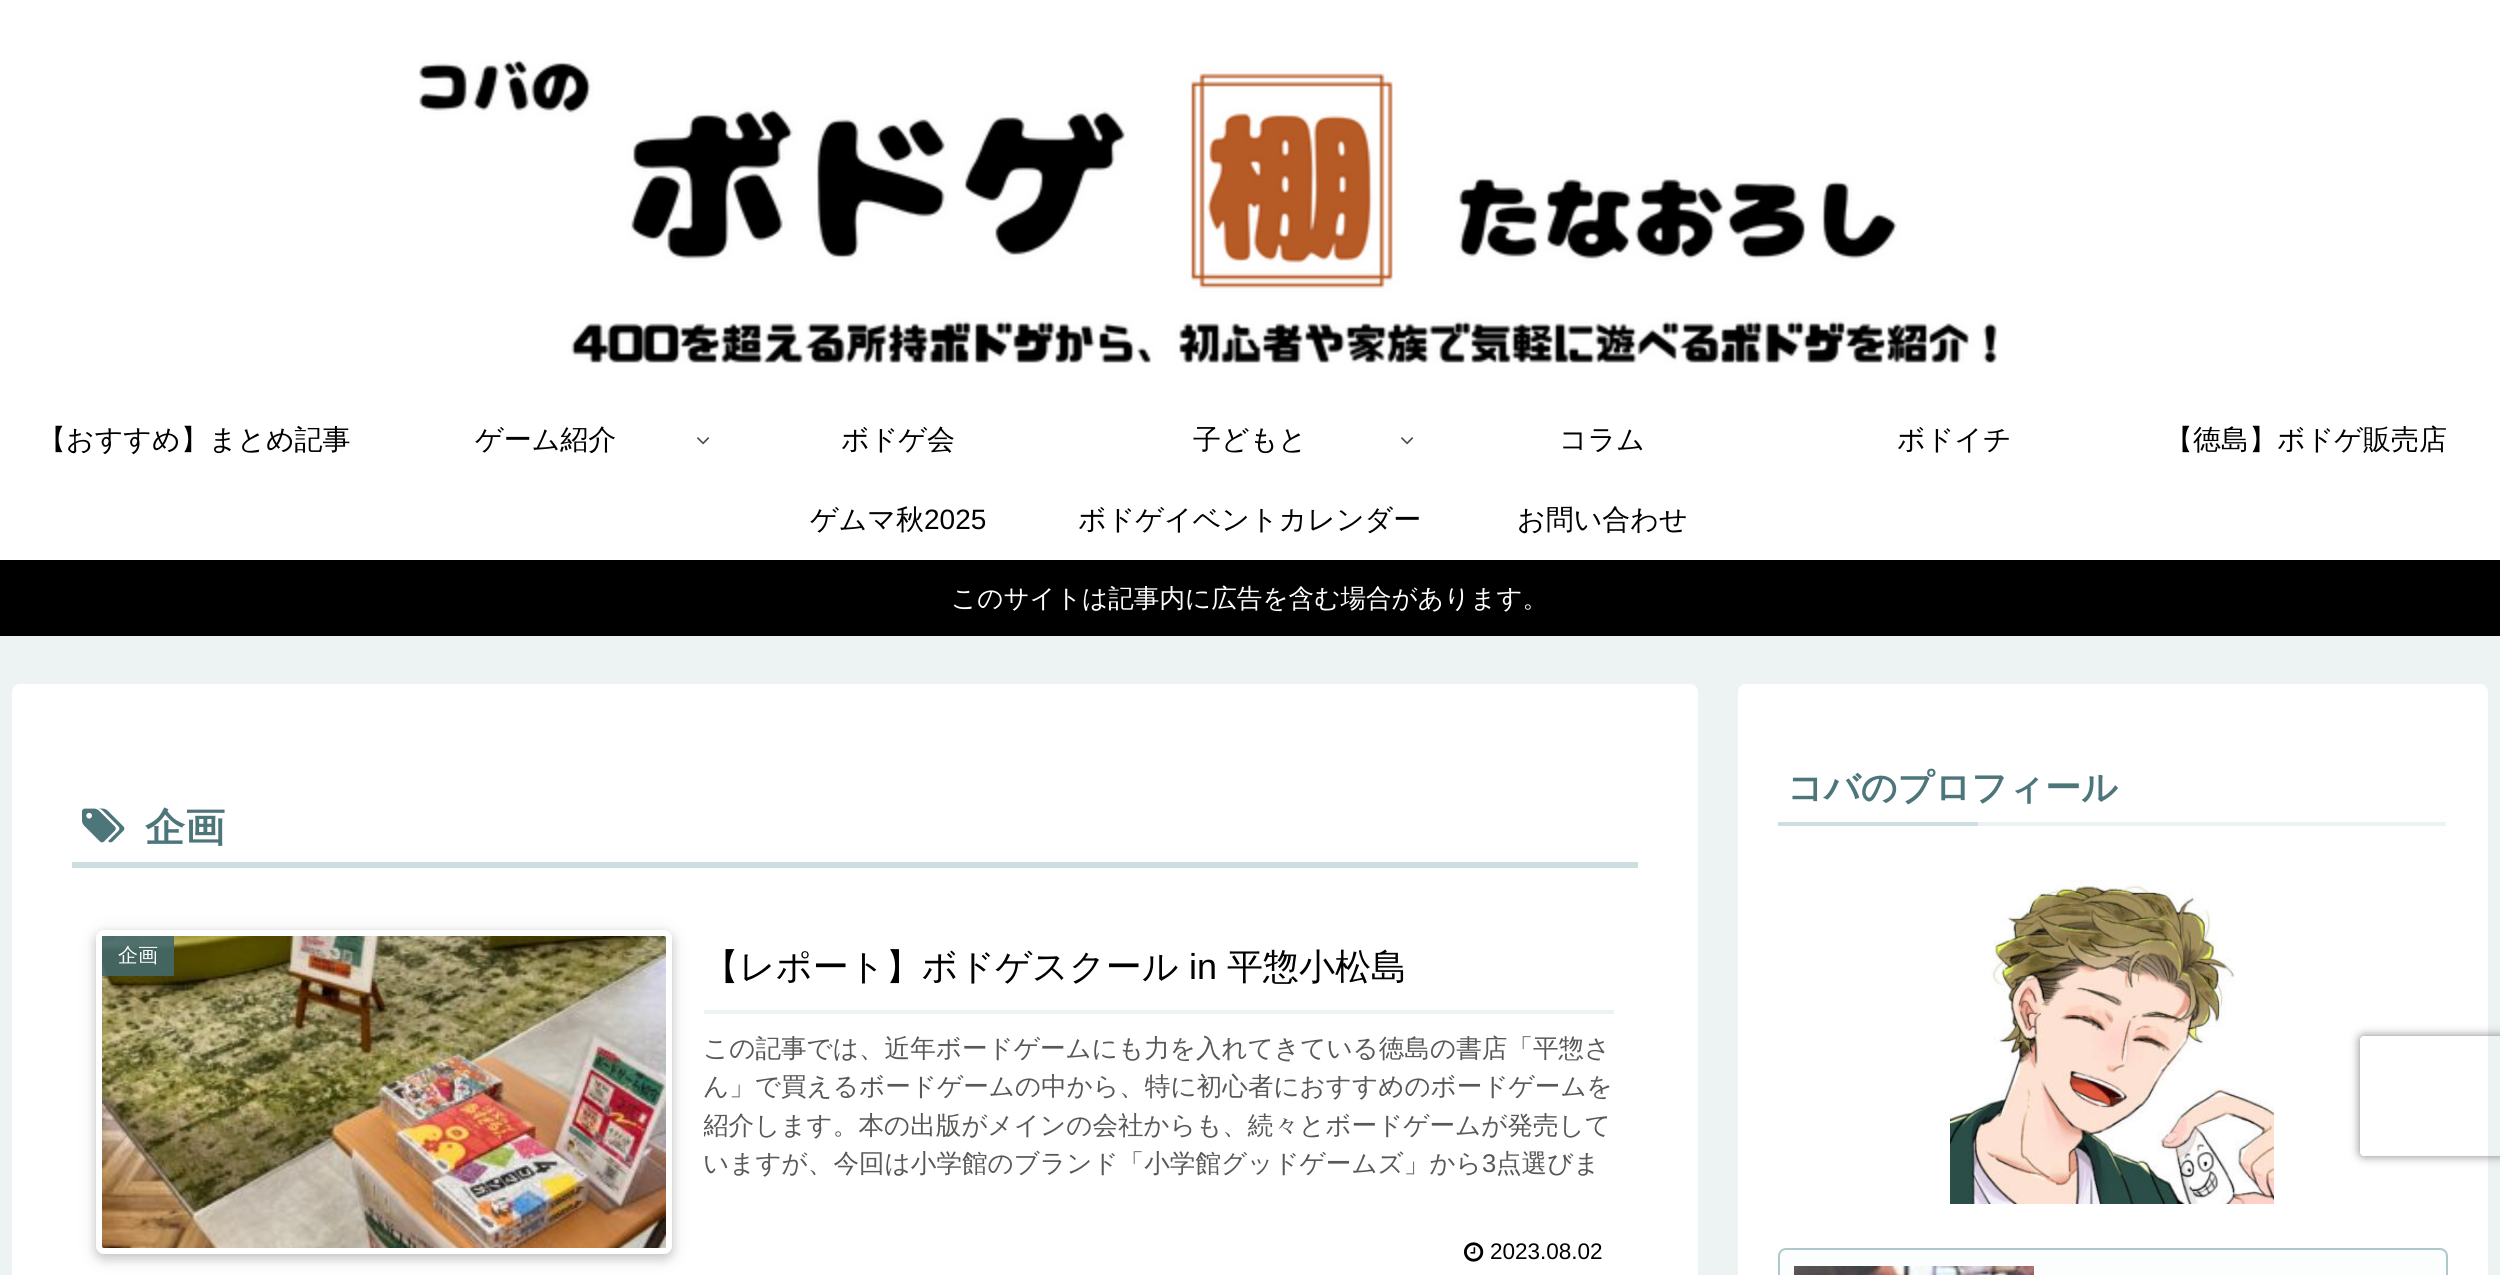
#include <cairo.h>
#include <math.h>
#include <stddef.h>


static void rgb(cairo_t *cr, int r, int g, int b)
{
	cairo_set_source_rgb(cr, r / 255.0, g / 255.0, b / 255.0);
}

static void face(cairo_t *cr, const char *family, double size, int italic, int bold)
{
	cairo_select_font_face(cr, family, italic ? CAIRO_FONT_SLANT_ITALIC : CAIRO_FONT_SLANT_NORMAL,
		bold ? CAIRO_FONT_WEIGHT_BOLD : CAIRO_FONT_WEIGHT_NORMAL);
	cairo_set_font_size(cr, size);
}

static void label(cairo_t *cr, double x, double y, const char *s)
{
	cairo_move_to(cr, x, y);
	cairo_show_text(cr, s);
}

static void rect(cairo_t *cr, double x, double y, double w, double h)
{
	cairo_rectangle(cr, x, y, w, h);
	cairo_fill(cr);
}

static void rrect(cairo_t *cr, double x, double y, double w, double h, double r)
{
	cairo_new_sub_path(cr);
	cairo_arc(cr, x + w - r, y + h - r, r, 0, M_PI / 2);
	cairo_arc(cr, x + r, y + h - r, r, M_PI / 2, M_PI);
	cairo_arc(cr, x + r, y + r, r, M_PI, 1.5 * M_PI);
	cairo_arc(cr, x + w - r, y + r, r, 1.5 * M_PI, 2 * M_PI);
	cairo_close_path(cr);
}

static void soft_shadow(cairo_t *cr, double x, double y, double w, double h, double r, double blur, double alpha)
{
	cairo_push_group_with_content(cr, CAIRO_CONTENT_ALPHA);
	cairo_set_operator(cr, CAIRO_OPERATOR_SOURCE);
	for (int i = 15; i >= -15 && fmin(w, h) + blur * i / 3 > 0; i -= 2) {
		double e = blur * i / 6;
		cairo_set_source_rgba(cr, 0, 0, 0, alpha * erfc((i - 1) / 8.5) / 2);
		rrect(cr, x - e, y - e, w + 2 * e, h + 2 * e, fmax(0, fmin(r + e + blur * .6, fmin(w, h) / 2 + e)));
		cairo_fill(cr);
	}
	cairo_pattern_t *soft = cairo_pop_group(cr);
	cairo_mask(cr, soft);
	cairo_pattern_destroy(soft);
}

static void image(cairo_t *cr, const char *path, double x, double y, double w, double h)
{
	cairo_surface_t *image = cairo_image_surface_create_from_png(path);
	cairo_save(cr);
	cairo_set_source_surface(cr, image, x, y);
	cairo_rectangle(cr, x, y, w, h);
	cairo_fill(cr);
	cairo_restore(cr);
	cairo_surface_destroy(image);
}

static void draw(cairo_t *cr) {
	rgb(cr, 237, 243, 243);
	cairo_paint(cr);
	rgb(cr, 255, 255, 255);
	rect(cr, 0, 0, 2500, 560);
	image(cr, "image0.png", 419, 59, 1578, 305);
	face(cr, "WenQuanYi Zen Hei Medium", 28, 0, 0);
	rgb(cr, 0, 0, 0);
	label(cr, 38, 449, "【おすすめ】まとめ記事");
	label(cr, 475, 449, "ゲーム紹介");
	image(cr, "image1.png", 697, 437, 13, 8);
	label(cr, 841, 449, "ボドゲ会");
	label(cr, 1193, 449, "子どもと");
	image(cr, "image1.png", 1401, 437, 13, 8);
	label(cr, 1559, 449, "コラム");
	label(cr, 1897, 449, "ボドイチ");
	label(cr, 2165, 449, "【徳島】ボドゲ販売店");
	label(cr, 810, 529, "ゲムマ秋");
	face(cr, "Liberation Sans", 28, 0, 0);
	label(cr, 924, 529, "2025");
	face(cr, "WenQuanYi Zen Hei Medium", 28, 0, 0);
	label(cr, 1078, 529, "ボドゲイベントカレンダー");
	label(cr, 1517, 529, "お問い合わせ");
	rect(cr, 0, 560, 2500, 76);
	face(cr, "WenQuanYi Zen Hei Medium", 25.6, 0, 0);
	rgb(cr, 255, 255, 255);
	label(cr, 951, 607, "このサイトは記事内に広告を含む場合があります。");
	rrect(cr, 1738, 684, 750, 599, 8);
	cairo_fill(cr);
	rgb(cr, 237, 243, 243);
	rect(cr, 1978, 822, 468, 4);
	face(cr, "WenQuanYi Zen Hei", 36, 0, 1);
	rgb(cr, 77, 118, 123);
	label(cr, 1787, 800, "コバのプロフィール");
	rgb(cr, 205, 222, 224);
	rect(cr, 1778, 822, 200, 4);
	image(cr, "image2.png", 1950, 880, 324, 324);
	rgb(cr, 252, 253, 253);
	rrect(cr, 1779, 1249, 668, 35, 7);
	cairo_fill_preserve(cr);
	rgb(cr, 174, 201, 204);
	cairo_stroke(cr);
	image(cr, "image3.png", 1794, 1266, 240, 9);
	rgb(cr, 255, 255, 255);
	rrect(cr, 12, 684, 1686, 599, 8);
	cairo_fill(cr);
	rgb(cr, 205, 222, 224);
	rect(cr, 72, 862, 1566, 6);
	image(cr, "image4.png", 82, 808, 43, 35);
	face(cr, "WenQuanYi Zen Hei", 40, 0, 1);
	rgb(cr, 77, 118, 123);
	label(cr, 145, 841, "企画");
	rgb(cr, 0, 0, 0);
	soft_shadow(cr, 96, 934, 576, 324, 8, 10, 0.12);
	soft_shadow(cr, 96, 934, 576, 324, 8, 5, 0.16);
	rrect(cr, 99, 933, 570, 318, 5);
	rgb(cr, 255, 255, 255);
	cairo_set_line_width(cr, 6);
	cairo_stroke(cr);
	image(cr, "image5.png", 102, 936, 564, 312);
	cairo_set_source_rgba(cr, 0.263, 0.404, 0.42, 0.9);
	rect(cr, 102, 936, 72, 40);
	face(cr, "WenQuanYi Zen Hei Medium", 20, 0, 0);
	rgb(cr, 255, 255, 255);
	label(cr, 118, 962, "企画");
	rgb(cr, 237, 243, 243);
	rect(cr, 704, 1010, 910, 4);
	face(cr, "WenQuanYi Zen Hei Medium", 36, 0, 0);
	rgb(cr, 0, 0, 0);
	label(cr, 703, 979, "【レポート】ボドゲスクール");
	face(cr, "Liberation Sans", 36, 0, 0);
	label(cr, 1189, 979, "in");
	face(cr, "WenQuanYi Zen Hei Medium", 36, 0, 0);
	label(cr, 1227, 979, "平惣小松島");
	face(cr, "WenQuanYi Zen Hei Medium", 25.6, 0, 0);
	rgb(cr, 89, 88, 87);
	label(cr, 703, 1057, "この記事では、近年ボードゲームにも力を入れてきている徳島の書店「平惣さ");
	label(cr, 703, 1095, "ん」で買えるボードゲームの中から、特に初心者におすすめのボードゲームを");
	cairo_save(cr);
	cairo_rectangle(cr, 704, 1028, 910, 154);
	cairo_clip(cr);
	label(cr, 703, 1134, "紹介します。本の出版がメインの会社からも、続々とボードゲームが発売して");
	cairo_restore(cr);
	label(cr, 703, 1172, "いますが、今回は小学館のブランド「小学館グッドゲームズ」から");
	face(cr, "Liberation Sans", 25.6, 0, 0);
	label(cr, 1482, 1172, "3");
	face(cr, "WenQuanYi Zen Hei Medium", 25.6, 0, 0);
	label(cr, 1496, 1172, "点選びま");
	image(cr, "image6.png", 1464, 1242, 20, 20);
	face(cr, "Liberation Sans", 22.5, 0, 0);
	rgb(cr, 0, 0, 0);
	label(cr, 1490, 1259, "2023.08.02");
	cairo_save(cr);
	cairo_set_fill_rule(cr, CAIRO_FILL_RULE_EVEN_ODD);
	cairo_new_path(cr);
	cairo_move_to(cr, 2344, 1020);
	cairo_line_to(cr, 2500, 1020);
	cairo_line_to(cr, 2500, 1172);
	cairo_line_to(cr, 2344, 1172);
	cairo_close_path(cr);
	cairo_move_to(cr, 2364, 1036);
	cairo_line_to(cr, 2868, 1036);
	cairo_curve_to(cr, 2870, 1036, 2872, 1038, 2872, 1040);
	cairo_line_to(cr, 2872, 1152);
	cairo_curve_to(cr, 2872, 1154, 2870, 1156, 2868, 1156);
	cairo_line_to(cr, 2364, 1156);
	cairo_curve_to(cr, 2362, 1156, 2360, 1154, 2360, 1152);
	cairo_line_to(cr, 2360, 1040);
	cairo_curve_to(cr, 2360, 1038, 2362, 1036, 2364, 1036);
	cairo_close_path(cr);
	cairo_clip(cr);
	rgb(cr, 128, 128, 128);
	soft_shadow(cr, 2360, 1036, 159, 120, 4, 5, 1);
	cairo_restore(cr);
}

int main(void) {
	cairo_surface_t *surface = cairo_image_surface_create(CAIRO_FORMAT_RGB24, 2500, 1275);
	cairo_t *cr = cairo_create(surface);
	cairo_font_options_t *options = cairo_font_options_create();
	cairo_font_options_set_hint_metrics(options, CAIRO_HINT_METRICS_OFF);
	cairo_font_options_set_hint_style(options, CAIRO_HINT_STYLE_NONE);
	cairo_set_font_options(cr, options);
	cairo_set_miter_limit(cr, 4);
	draw(cr);
	cairo_surface_write_to_png(surface, "render.png");
	cairo_font_options_destroy(options);
	cairo_destroy(cr);
	cairo_surface_destroy(surface);
	return 0;
}
